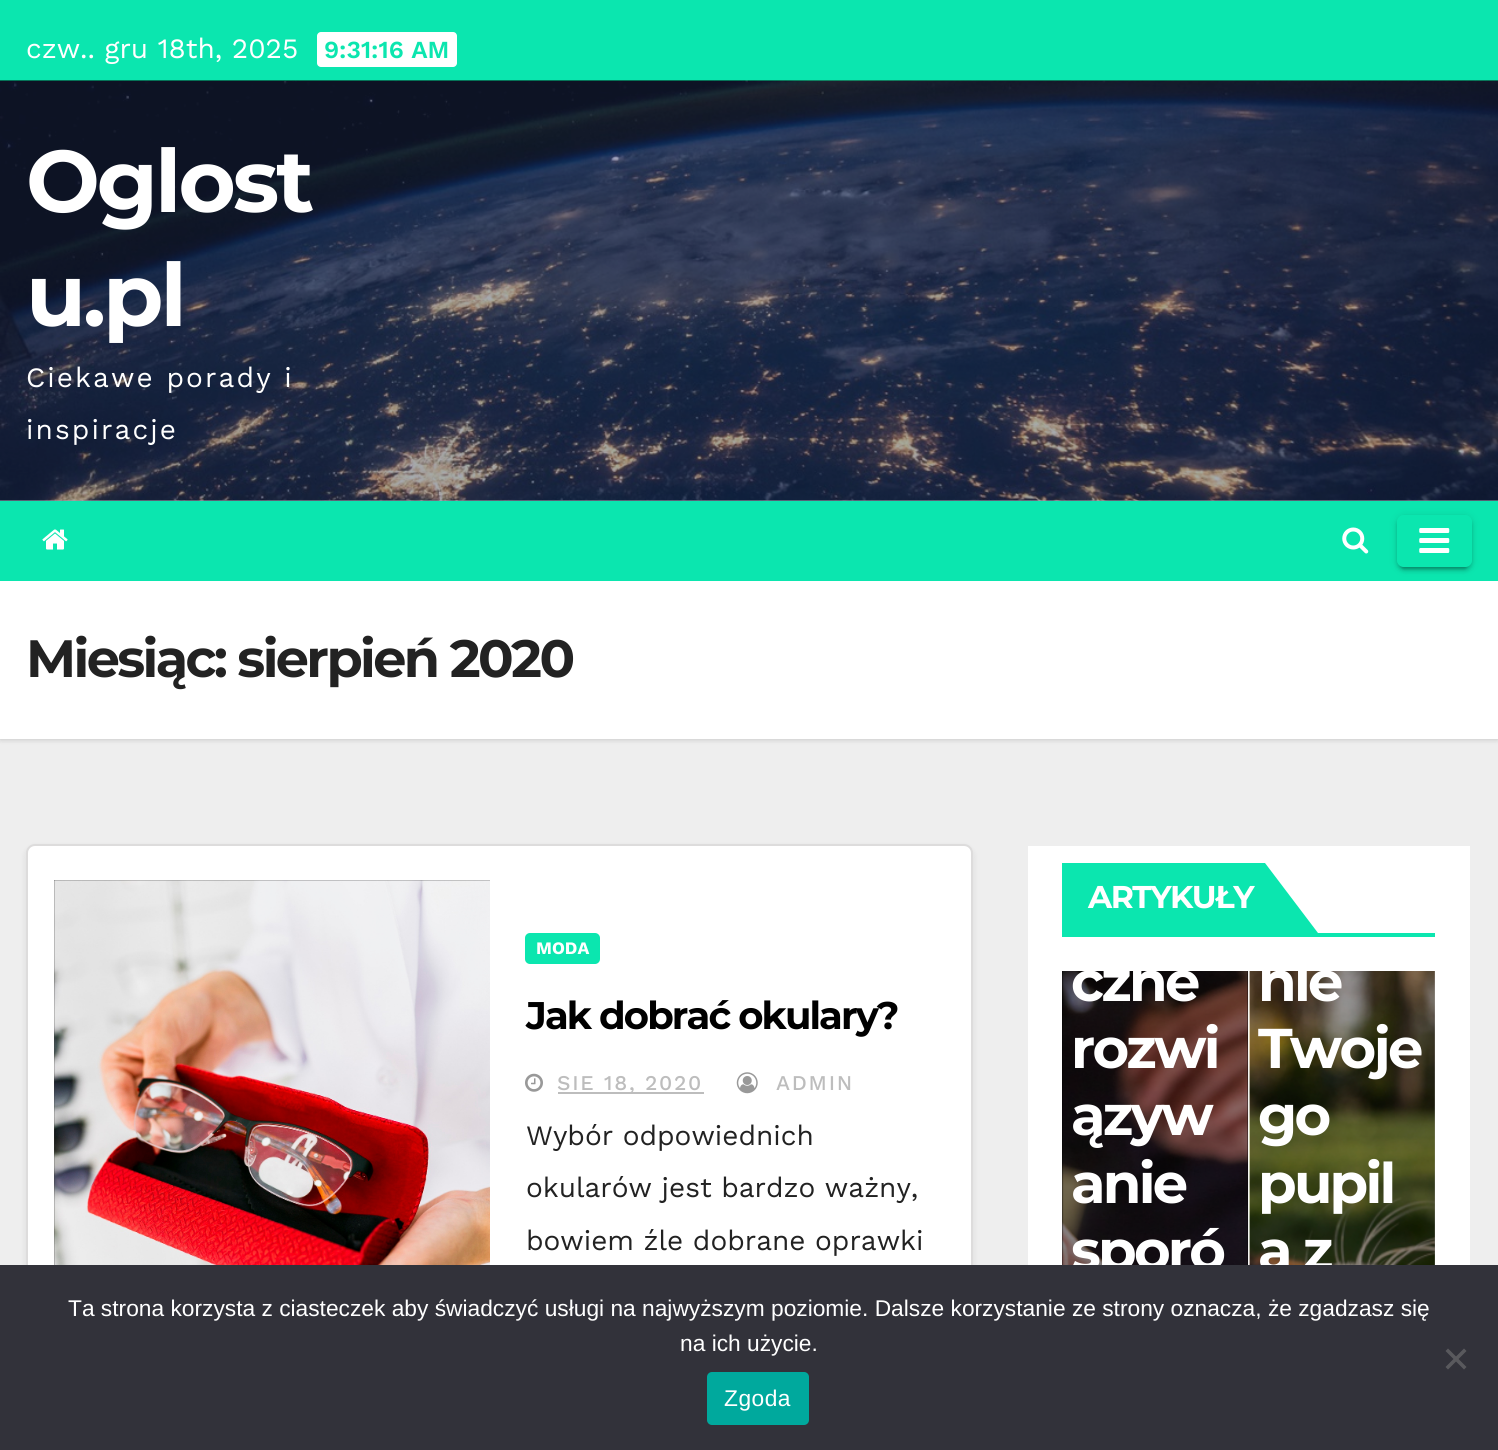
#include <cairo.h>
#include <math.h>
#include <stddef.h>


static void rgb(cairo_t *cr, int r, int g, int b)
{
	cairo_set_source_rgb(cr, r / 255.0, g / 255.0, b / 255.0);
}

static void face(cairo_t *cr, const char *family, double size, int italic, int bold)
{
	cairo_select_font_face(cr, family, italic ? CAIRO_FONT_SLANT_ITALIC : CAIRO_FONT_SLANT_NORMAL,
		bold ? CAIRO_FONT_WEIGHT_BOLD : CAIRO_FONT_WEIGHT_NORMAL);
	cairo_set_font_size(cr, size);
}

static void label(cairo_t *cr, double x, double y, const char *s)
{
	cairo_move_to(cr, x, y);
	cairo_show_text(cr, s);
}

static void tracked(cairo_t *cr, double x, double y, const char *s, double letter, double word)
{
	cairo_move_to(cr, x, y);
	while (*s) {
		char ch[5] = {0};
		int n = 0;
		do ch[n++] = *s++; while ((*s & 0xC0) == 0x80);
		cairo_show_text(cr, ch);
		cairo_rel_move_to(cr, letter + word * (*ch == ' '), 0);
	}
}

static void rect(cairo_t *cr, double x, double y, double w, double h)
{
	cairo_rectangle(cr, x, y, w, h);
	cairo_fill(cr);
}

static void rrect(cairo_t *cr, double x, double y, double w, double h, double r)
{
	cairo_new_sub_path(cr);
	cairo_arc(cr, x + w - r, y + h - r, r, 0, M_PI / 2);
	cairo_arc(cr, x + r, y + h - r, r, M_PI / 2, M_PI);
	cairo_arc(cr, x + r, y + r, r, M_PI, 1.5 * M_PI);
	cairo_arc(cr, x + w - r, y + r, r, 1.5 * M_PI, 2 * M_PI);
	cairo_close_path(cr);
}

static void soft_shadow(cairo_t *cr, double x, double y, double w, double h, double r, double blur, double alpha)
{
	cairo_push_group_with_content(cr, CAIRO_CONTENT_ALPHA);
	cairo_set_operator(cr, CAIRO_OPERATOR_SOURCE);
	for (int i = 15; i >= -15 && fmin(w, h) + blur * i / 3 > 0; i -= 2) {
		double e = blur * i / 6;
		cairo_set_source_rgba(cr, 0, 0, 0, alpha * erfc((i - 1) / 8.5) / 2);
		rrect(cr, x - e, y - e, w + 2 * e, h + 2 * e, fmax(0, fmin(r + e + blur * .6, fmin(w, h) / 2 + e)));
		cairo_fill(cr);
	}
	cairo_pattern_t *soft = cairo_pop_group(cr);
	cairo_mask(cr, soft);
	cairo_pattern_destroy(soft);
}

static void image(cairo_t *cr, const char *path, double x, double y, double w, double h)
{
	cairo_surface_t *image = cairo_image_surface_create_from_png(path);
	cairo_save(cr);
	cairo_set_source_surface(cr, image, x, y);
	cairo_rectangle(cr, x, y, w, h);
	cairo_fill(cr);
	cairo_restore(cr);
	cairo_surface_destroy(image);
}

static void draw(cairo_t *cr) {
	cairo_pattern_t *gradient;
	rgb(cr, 238, 238, 238);
	cairo_paint(cr);
	rgb(cr, 156, 162, 179);
	rect(cr, 0, 500, 1498, 1);
	rgb(cr, 11, 230, 175);
	rect(cr, 0, 0, 1498, 81);
	face(cr, "Work Sans", 28, 0, 0);
	rgb(cr, 255, 255, 255);
	label(cr, 26, 58, "czw.. gru 18th, 2025");
	rrect(cr, 317, 32, 140, 35, 4);
	cairo_fill(cr);
	face(cr, "Work Sans SemiBold", 24.5, 0, 0);
	rgb(cr, 11, 230, 175);
	label(cr, 324, 58, "9:31:16 AM");
	image(cr, "image0.png", 0, 80, 1498, 421);
	face(cr, "Montserrat", 87.5, 0, 1);
	rgb(cr, 255, 255, 255);
	tracked(cr, 26, 212, "Oglost", -3, 0);
	tracked(cr, 26, 326, "u.pl", -3, 0);
	face(cr, "Work Sans", 28, 0, 0);
	tracked(cr, 26, 387, "Ciekawe porady i", 2.1, 0);
	tracked(cr, 26, 439, "inspiracje", 2.1, 0);
	rgb(cr, 0, 0, 0);
	soft_shadow(cr, 0, 583, 1498, 157, 0, 2.5, 0.15);
	rgb(cr, 11, 230, 175);
	rect(cr, 0, 501, 1498, 80);
	image(cr, "image1.png", 42, 529, 26, 21);
	image(cr, "image2.png", 1342, 527, 27, 27);
	rgb(cr, 255, 255, 255);
	rect(cr, 0, 581, 1498, 158);
	cairo_save(cr);
	cairo_set_fill_rule(cr, CAIRO_FILL_RULE_EVEN_ODD);
	cairo_new_path(cr);
	cairo_move_to(cr, 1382, 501);
	cairo_line_to(cr, 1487, 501);
	cairo_line_to(cr, 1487, 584);
	cairo_line_to(cr, 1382, 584);
	cairo_close_path(cr);
	cairo_move_to(cr, 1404, 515);
	cairo_line_to(cr, 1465, 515);
	cairo_curve_to(cr, 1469, 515, 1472, 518, 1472, 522);
	cairo_line_to(cr, 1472, 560);
	cairo_curve_to(cr, 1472, 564, 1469, 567, 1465, 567);
	cairo_line_to(cr, 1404, 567);
	cairo_curve_to(cr, 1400, 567, 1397, 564, 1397, 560);
	cairo_line_to(cr, 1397, 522);
	cairo_curve_to(cr, 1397, 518, 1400, 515, 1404, 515);
	cairo_close_path(cr);
	cairo_clip(cr);
	rgb(cr, 0, 0, 0);
	soft_shadow(cr, 1397, 516, 75, 53, 7, 4.5, 0.12);
	cairo_restore(cr);
	cairo_save(cr);
	cairo_set_fill_rule(cr, CAIRO_FILL_RULE_EVEN_ODD);
	cairo_new_path(cr);
	cairo_move_to(cr, 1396, 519);
	cairo_line_to(cr, 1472, 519);
	cairo_line_to(cr, 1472, 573);
	cairo_line_to(cr, 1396, 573);
	cairo_close_path(cr);
	cairo_move_to(cr, 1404, 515);
	cairo_line_to(cr, 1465, 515);
	cairo_curve_to(cr, 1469, 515, 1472, 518, 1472, 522);
	cairo_line_to(cr, 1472, 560);
	cairo_curve_to(cr, 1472, 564, 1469, 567, 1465, 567);
	cairo_line_to(cr, 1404, 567);
	cairo_curve_to(cr, 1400, 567, 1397, 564, 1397, 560);
	cairo_line_to(cr, 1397, 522);
	cairo_curve_to(cr, 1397, 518, 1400, 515, 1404, 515);
	cairo_close_path(cr);
	cairo_clip(cr);
	rgb(cr, 0, 0, 0);
	soft_shadow(cr, 1400, 523, 68, 46, 4, 1, 0.2);
	cairo_restore(cr);
	cairo_save(cr);
	cairo_set_fill_rule(cr, CAIRO_FILL_RULE_EVEN_ODD);
	cairo_new_path(cr);
	cairo_move_to(cr, 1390, 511);
	cairo_line_to(cr, 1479, 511);
	cairo_line_to(cr, 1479, 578);
	cairo_line_to(cr, 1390, 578);
	cairo_close_path(cr);
	cairo_move_to(cr, 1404, 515);
	cairo_line_to(cr, 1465, 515);
	cairo_curve_to(cr, 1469, 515, 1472, 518, 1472, 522);
	cairo_line_to(cr, 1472, 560);
	cairo_curve_to(cr, 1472, 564, 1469, 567, 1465, 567);
	cairo_line_to(cr, 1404, 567);
	cairo_curve_to(cr, 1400, 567, 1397, 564, 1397, 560);
	cairo_line_to(cr, 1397, 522);
	cairo_curve_to(cr, 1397, 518, 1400, 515, 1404, 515);
	cairo_close_path(cr);
	cairo_clip(cr);
	rgb(cr, 0, 0, 0);
	soft_shadow(cr, 1397, 518, 75, 53, 7, 2, 0.14);
	cairo_restore(cr);
	image(cr, "image3.png", 1419, 528, 31, 25);
	face(cr, "Montserrat", 52.5, 0, 1);
	rgb(cr, 34, 34, 34);
	tracked(cr, 26, 677, "Miesiąc: sierpień 2020", -2.6, 0);
	rgb(cr, 0, 0, 0);
	soft_shadow(cr, 26, 847, 947, 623, 9, 3.5, 0.08);
	rgb(cr, 255, 255, 255);
	rrect(cr, 27, 845, 945, 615, 8);
	cairo_fill_preserve(cr);
	rgb(cr, 221, 220, 220);
	cairo_stroke(cr);
	rgb(cr, 51, 51, 51);
	rect(cr, 54, 880, 436, 385);
	image(cr, "image4.png", 54, 880, 436, 385);
	rgb(cr, 11, 230, 175);
	rrect(cr, 525, 933, 75, 31, 5);
	cairo_fill(cr);
	face(cr, "Work Sans", 17.5, 0, 1);
	rgb(cr, 255, 255, 255);
	label(cr, 536, 954, "MODA");
	face(cr, "Montserrat", 38.5, 0, 1);
	rgb(cr, 0, 0, 0);
	tracked(cr, 526, 1029, "Jak dobrać okulary?", -1.9, 0);
	image(cr, "image5.png", 525, 1073, 18, 19);
	rgb(cr, 189, 189, 189);
	rect(cr, 558, 1092, 146, 2);
	face(cr, "Work Sans Medium", 21, 0, 0);
	tracked(cr, 557, 1090, "SIE 18, 2020", 1.75, 0);
	image(cr, "image6.png", 736, 1072, 22, 22);
	tracked(cr, 776, 1090, "ADMIN", 1.75, 0);
	face(cr, "Work Sans", 28, 0, 0);
	rgb(cr, 34, 34, 34);
	label(cr, 526, 1145, "Wybór odpowiednich");
	label(cr, 526, 1197, "okularów jest bardzo ważny,");
	label(cr, 526, 1250, "bowiem źle dobrane oprawki");
	rgb(cr, 255, 255, 255);
	rect(cr, 1028, 846, 442, 419);
	rgb(cr, 11, 230, 175);
	rect(cr, 1062, 933, 373, 4);
	rect(cr, 1062, 863, 203, 70);
	face(cr, "Montserrat", 31.5, 0, 1);
	rgb(cr, 255, 255, 255);
	tracked(cr, 1088, 908, "ARTYKUŁY", -1.5, 0);
	rgb(cr, 11, 230, 175);
	cairo_new_path(cr);
	cairo_move_to(cr, 1265, 933);
	cairo_line_to(cr, 1265, 863);
	cairo_line_to(cr, 1318, 933);
	cairo_close_path(cr);
	cairo_fill(cr);
	rgb(cr, 0, 0, 0);
	rect(cr, 1062, 971, 186, 294);
	image(cr, "image7.png", 1062, 971, 186, 294);
	gradient = cairo_pattern_create_linear(1155, 289, 1155, 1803);
	cairo_pattern_add_color_stop_rgba(gradient, 0, 0, 0, 0, 0);
	cairo_pattern_add_color_stop_rgba(gradient, 0.5, 0, 0, 0, 0.4);
	cairo_pattern_add_color_stop_rgba(gradient, 1, 0, 0, 0, 0.7);
	cairo_set_source(cr, gradient);
	cairo_pattern_destroy(gradient);
	rect(cr, 1062, 971, 186, 294);
	cairo_save(cr);
	cairo_rectangle(cr, 1062, 971, 186, 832);
	cairo_clip(cr);
	face(cr, "Montserrat", 56, 0, 1);
	rgb(cr, 255, 255, 255);
	tracked(cr, 1071, 1001, "czne", -2.75, 0);
	cairo_restore(cr);
	face(cr, "Montserrat", 56, 0, 1);
	rgb(cr, 255, 255, 255);
	tracked(cr, 1071, 1068, "rozwi", -2.75, 0);
	tracked(cr, 1071, 1135, "ązyw", -2.75, 0);
	tracked(cr, 1071, 1203, "anie", -2.75, 0);
	tracked(cr, 1071, 1270, "sporó", -2.75, 0);
	image(cr, "image8.png", 1248, 971, 187, 294);
	gradient = cairo_pattern_create_linear(1342, 625, 1342, 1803);
	cairo_pattern_add_color_stop_rgba(gradient, 0, 0, 0, 0, 0);
	cairo_pattern_add_color_stop_rgba(gradient, 0.5, 0, 0, 0, 0.4);
	cairo_pattern_add_color_stop_rgba(gradient, 1, 0, 0, 0, 0.7);
	cairo_set_source(cr, gradient);
	cairo_pattern_destroy(gradient);
	rect(cr, 1250, 971, 185, 294);
	cairo_save(cr);
	cairo_rectangle(cr, 1250, 971, 185, 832);
	cairo_clip(cr);
	rgb(cr, 255, 255, 255);
	tracked(cr, 1258, 1001, "nie", -2.75, 0);
	cairo_restore(cr);
	rgb(cr, 255, 255, 255);
	tracked(cr, 1258, 1068, "Twoje", -2.75, 0);
	tracked(cr, 1258, 1135, "go", -2.75, 0);
	tracked(cr, 1258, 1203, "pupil", -2.75, 0);
	tracked(cr, 1258, 1270, "a z", -2.75, 0);
	rgb(cr, 50, 50, 58);
	rect(cr, 0, 1265, 1498, 185);
	face(cr, "Liberation Sans", 22.75, 0, 0);
	rgb(cr, 255, 255, 255);
	label(cr, 68, 1316, "Ta strona korzysta z ciasteczek aby świadczyć usługi na najwyższym poziomie. Dalsze korzystanie ze strony oznacza, że zgadzasz się");
	label(cr, 680, 1351, "na ich użycie.");
	rgb(cr, 89, 89, 93);
	cairo_new_path(cr);
	cairo_move_to(cr, 1464, 1348.5);
	cairo_line_to(cr, 1466.5, 1351);
	cairo_line_to(cr, 1448, 1369.5);
	cairo_line_to(cr, 1445.5, 1367);
	cairo_close_path(cr);
	cairo_fill(cr);
	cairo_new_path(cr);
	cairo_move_to(cr, 1445.5, 1351);
	cairo_line_to(cr, 1448, 1348.5);
	cairo_line_to(cr, 1466.5, 1367);
	cairo_line_to(cr, 1464, 1369.5);
	cairo_close_path(cr);
	cairo_fill(cr);
	rgb(cr, 0, 169, 157);
	rrect(cr, 707, 1372, 102, 53, 5);
	cairo_fill(cr);
	rgb(cr, 255, 255, 255);
	tracked(cr, 724, 1406, "Zgoda", 0.5, 0);
}

int main(void) {
	cairo_surface_t *surface = cairo_image_surface_create(CAIRO_FORMAT_RGB24, 1498, 1450);
	cairo_t *cr = cairo_create(surface);
	cairo_font_options_t *options = cairo_font_options_create();
	cairo_font_options_set_hint_metrics(options, CAIRO_HINT_METRICS_OFF);
	cairo_font_options_set_hint_style(options, CAIRO_HINT_STYLE_NONE);
	cairo_set_font_options(cr, options);
	cairo_set_miter_limit(cr, 4);
	draw(cr);
	cairo_surface_write_to_png(surface, "render.png");
	cairo_font_options_destroy(options);
	cairo_destroy(cr);
	cairo_surface_destroy(surface);
	return 0;
}
